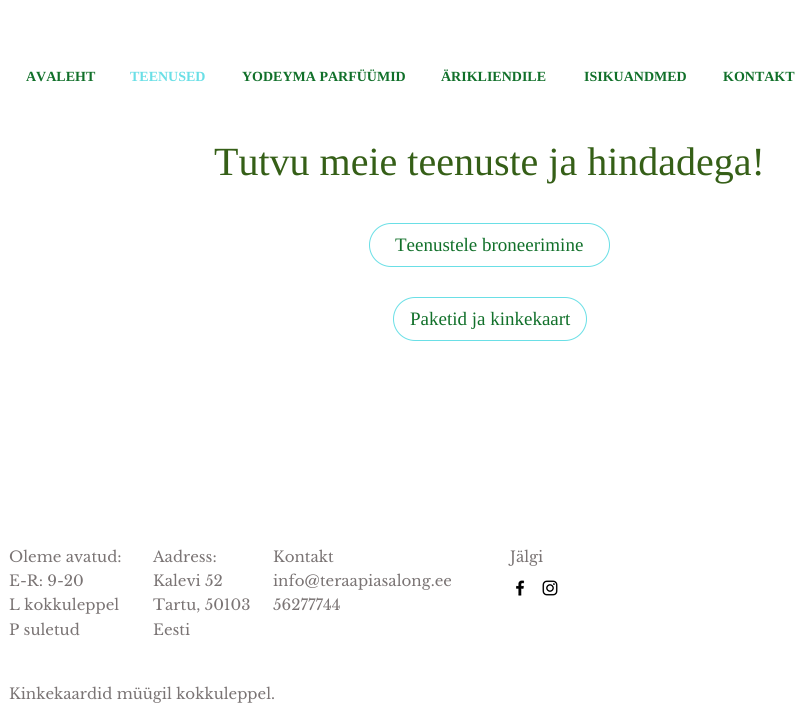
#include <cairo.h>
#include <math.h>
#include <stddef.h>


static void rgb(cairo_t *cr, int r, int g, int b)
{
	cairo_set_source_rgb(cr, r / 255.0, g / 255.0, b / 255.0);
}

static void face(cairo_t *cr, const char *family, double size, int italic, int bold)
{
	cairo_select_font_face(cr, family, italic ? CAIRO_FONT_SLANT_ITALIC : CAIRO_FONT_SLANT_NORMAL,
		bold ? CAIRO_FONT_WEIGHT_BOLD : CAIRO_FONT_WEIGHT_NORMAL);
	cairo_set_font_size(cr, size);
}

static void label(cairo_t *cr, double x, double y, const char *s)
{
	cairo_move_to(cr, x, y);
	cairo_show_text(cr, s);
}

static void rrect(cairo_t *cr, double x, double y, double w, double h, double r)
{
	cairo_new_sub_path(cr);
	cairo_arc(cr, x + w - r, y + h - r, r, 0, M_PI / 2);
	cairo_arc(cr, x + r, y + h - r, r, M_PI / 2, M_PI);
	cairo_arc(cr, x + r, y + r, r, M_PI, 1.5 * M_PI);
	cairo_arc(cr, x + w - r, y + r, r, 1.5 * M_PI, 2 * M_PI);
	cairo_close_path(cr);
}

static void image(cairo_t *cr, const char *path, double x, double y, double w, double h)
{
	cairo_surface_t *image = cairo_image_surface_create_from_png(path);
	cairo_save(cr);
	cairo_set_source_surface(cr, image, x, y);
	cairo_rectangle(cr, x, y, w, h);
	cairo_fill(cr);
	cairo_restore(cr);
	cairo_surface_destroy(image);
}

static void draw(cairo_t *cr) {
	rgb(cr, 255, 255, 255);
	cairo_paint(cr);
	face(cr, "Liberation Serif", 14, 0, 1);
	rgb(cr, 17, 112, 42);
	label(cr, 26, 81, "AVALEHT");
	rgb(cr, 106, 223, 230);
	label(cr, 130, 81, "TEENUSED");
	rgb(cr, 17, 112, 42);
	label(cr, 242, 81, "YODEYMA PARFÜÜMID");
	label(cr, 441, 81, "ÄRIKLIENDILE");
	label(cr, 584, 81, "ISIKUANDMED");
	label(cr, 723, 81, "KONTAKT");
	face(cr, "Liberation Serif", 40, 0, 0);
	rgb(cr, 53, 95, 23);
	label(cr, 214, 175, "Tutvu meie teenuste ja hindadega!");
	rrect(cr, 369.5, 223.5, 240, 43, 21.5);
	rgb(cr, 106, 223, 230);
	cairo_set_line_width(cr, 1);
	cairo_stroke(cr);
	face(cr, "Liberation Serif", 19, 0, 0);
	rgb(cr, 17, 112, 42);
	label(cr, 395, 251, "Teenustele broneerimine");
	rrect(cr, 393.5, 297.5, 193, 43, 21.5);
	rgb(cr, 106, 223, 230);
	cairo_stroke(cr);
	rgb(cr, 17, 112, 42);
	label(cr, 410, 325, "Paketid ja kinkekaart");
	face(cr, "Libre Baskerville", 15, 0, 0);
	rgb(cr, 122, 116, 116);
	label(cr, 9, 562, "Oleme avatud:");
	label(cr, 9, 586, "E-R: 9-20");
	label(cr, 9, 610, "L kokkuleppel");
	label(cr, 9, 635, "P suletud");
	label(cr, 153, 562, "Aadress:");
	label(cr, 153, 586, "Kalevi 52");
	label(cr, 153, 610, "Tartu, 50103");
	label(cr, 153, 635, "Eesti");
	label(cr, 273, 562, "Kontakt");
	label(cr, 273, 586, "info@teraapiasalong.ee");
	label(cr, 273, 610, "56277744");
	label(cr, 510, 562, "Jälgi");
	image(cr, "image0.png", 516, 580, 9, 16);
	image(cr, "image1.png", 542, 580, 16, 16);
	label(cr, 9, 699, "Kinkekaardid müügil kokkuleppel.");
}

int main(void) {
	cairo_surface_t *surface = cairo_image_surface_create(CAIRO_FORMAT_RGB24, 798, 709);
	cairo_t *cr = cairo_create(surface);
	cairo_font_options_t *options = cairo_font_options_create();
	cairo_font_options_set_hint_metrics(options, CAIRO_HINT_METRICS_OFF);
	cairo_font_options_set_hint_style(options, CAIRO_HINT_STYLE_NONE);
	cairo_set_font_options(cr, options);
	cairo_set_miter_limit(cr, 4);
	draw(cr);
	cairo_surface_write_to_png(surface, "render.png");
	cairo_font_options_destroy(options);
	cairo_destroy(cr);
	cairo_surface_destroy(surface);
	return 0;
}
